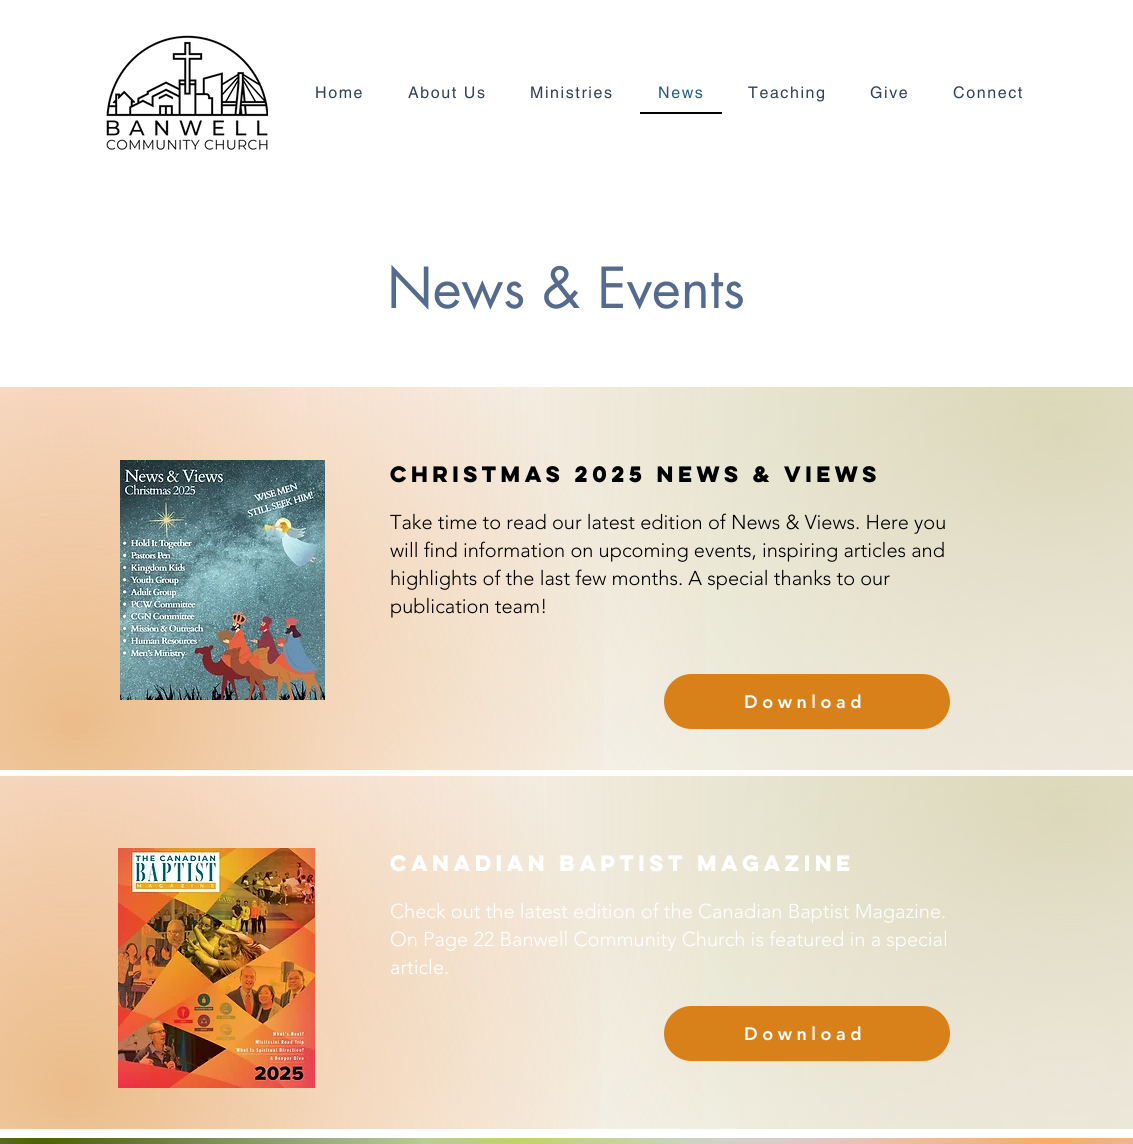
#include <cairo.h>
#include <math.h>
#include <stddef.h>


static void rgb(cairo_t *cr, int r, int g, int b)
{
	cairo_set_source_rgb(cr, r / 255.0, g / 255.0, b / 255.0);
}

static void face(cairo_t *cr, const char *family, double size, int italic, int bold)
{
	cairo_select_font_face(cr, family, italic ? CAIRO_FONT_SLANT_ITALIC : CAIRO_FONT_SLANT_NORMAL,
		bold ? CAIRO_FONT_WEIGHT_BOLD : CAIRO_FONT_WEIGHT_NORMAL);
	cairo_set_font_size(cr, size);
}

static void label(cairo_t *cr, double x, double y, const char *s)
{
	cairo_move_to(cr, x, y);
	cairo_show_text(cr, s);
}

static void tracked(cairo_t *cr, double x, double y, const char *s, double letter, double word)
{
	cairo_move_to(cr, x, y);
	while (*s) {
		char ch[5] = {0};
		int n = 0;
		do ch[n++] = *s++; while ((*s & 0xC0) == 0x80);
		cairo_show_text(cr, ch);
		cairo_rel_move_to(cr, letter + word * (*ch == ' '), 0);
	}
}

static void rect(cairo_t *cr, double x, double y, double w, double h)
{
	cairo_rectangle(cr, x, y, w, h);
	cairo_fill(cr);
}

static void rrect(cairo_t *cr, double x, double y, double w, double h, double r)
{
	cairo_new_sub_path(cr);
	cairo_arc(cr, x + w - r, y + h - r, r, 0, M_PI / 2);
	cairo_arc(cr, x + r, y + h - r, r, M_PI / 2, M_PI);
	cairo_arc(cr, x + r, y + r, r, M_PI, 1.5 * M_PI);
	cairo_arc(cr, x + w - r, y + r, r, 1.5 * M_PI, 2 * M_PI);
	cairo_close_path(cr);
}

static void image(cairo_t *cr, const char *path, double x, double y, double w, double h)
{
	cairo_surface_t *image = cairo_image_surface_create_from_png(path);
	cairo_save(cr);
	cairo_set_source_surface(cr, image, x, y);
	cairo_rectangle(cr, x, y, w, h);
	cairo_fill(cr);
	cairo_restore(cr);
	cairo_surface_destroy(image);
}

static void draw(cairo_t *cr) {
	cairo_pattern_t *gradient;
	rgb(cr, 255, 255, 255);
	cairo_paint(cr);
	image(cr, "image0.png", 106, 35, 162, 115);
	face(cr, "helvetica", 16, 0, 0);
	rgb(cr, 50, 65, 88);
	tracked(cr, 315, 98, "Home", 1.6, 0);
	tracked(cr, 408, 98, "About Us", 1.6, 0);
	tracked(cr, 530, 98, "Ministries", 1.6, 0);
	rgb(cr, 0, 0, 0);
	rect(cr, 640, 112, 82, 2);
	rgb(cr, 37, 93, 126);
	tracked(cr, 658, 98, "News", 1.6, 0);
	rgb(cr, 50, 65, 88);
	tracked(cr, 748, 98, "Teaching", 1.6, 0);
	tracked(cr, 870, 98, "Give", 1.6, 0);
	tracked(cr, 953, 98, "Connect", 1.6, 0);
	face(cr, "futura", 55, 0, 0);
	rgb(cr, 85, 107, 141);
	label(cr, 387, 308, "News & Events");
	gradient = cairo_pattern_create_radial(1061, 431, 0, 1061, 431, 1114);
	cairo_pattern_add_color_stop_rgba(gradient, 0, 0.843, 0.831, 0.694, 1);
	cairo_pattern_add_color_stop_rgba(gradient, 0.7, 1, 1, 1, 1);
	cairo_set_source(cr, gradient);
	cairo_pattern_destroy(gradient);
	rect(cr, 307, 387, 826, 383);
	gradient = cairo_pattern_create_radial(70, 435, 0, 70, 435, 1115);
	cairo_pattern_add_color_stop_rgba(gradient, 0, 0.973, 0.82, 0.761, 0.48);
	cairo_pattern_add_color_stop_rgba(gradient, 0.7, 0.973, 0.82, 0.761, 0);
	cairo_set_source(cr, gradient);
	cairo_pattern_destroy(gradient);
	rect(cr, 0, 387, 706, 383);
	gradient = cairo_pattern_create_radial(74, 724, 0, 74, 724, 1112);
	cairo_pattern_add_color_stop_rgba(gradient, 0, 0.847, 0.506, 0.102, 0.47);
	cairo_pattern_add_color_stop_rgba(gradient, 0.5, 0.847, 0.506, 0.102, 0);
	cairo_set_source(cr, gradient);
	cairo_pattern_destroy(gradient);
	rect(cr, 0, 387, 604, 383);
	gradient = cairo_pattern_create_radial(1069, 730, 0, 1069, 730, 1123);
	cairo_pattern_add_color_stop_rgba(gradient, 0, 0.953, 0.914, 0.898, 0.48);
	cairo_pattern_add_color_stop_rgba(gradient, 0.4, 0.953, 0.914, 0.898, 0);
	cairo_set_source(cr, gradient);
	cairo_pattern_destroy(gradient);
	rect(cr, 740, 387, 393, 383);
	image(cr, "image1.png", 120, 460, 205, 240);
	face(cr, "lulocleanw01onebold", 20, 0, 1);
	rgb(cr, 0, 0, 0);
	label(cr, 390, 482, "CHRISTMAS 2025 News & Views");
	face(cr, "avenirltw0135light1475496 Light", 20, 0, 0);
	label(cr, 390, 529, "Take time to read our latest edition of News & Views. Here you");
	label(cr, 390, 557, "will find information on upcoming events, inspiring articles and");
	label(cr, 390, 585, "highlights of the last few months. A special thanks to our");
	label(cr, 390, 613, "publication team!");
	rgb(cr, 216, 129, 26);
	rrect(cr, 664, 674, 286, 55, 27.5);
	cairo_fill(cr);
	face(cr, "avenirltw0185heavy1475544 Black", 18, 0, 0);
	rgb(cr, 255, 255, 255);
	tracked(cr, 744, 708, "Download", 4.5, 0);
	gradient = cairo_pattern_create_radial(1061, 816, 0, 1061, 816, 1107);
	cairo_pattern_add_color_stop_rgba(gradient, 0, 0.843, 0.831, 0.694, 1);
	cairo_pattern_add_color_stop_rgba(gradient, 0.7, 1, 1, 1, 1);
	cairo_set_source(cr, gradient);
	cairo_pattern_destroy(gradient);
	rect(cr, 310, 776, 823, 353);
	gradient = cairo_pattern_create_radial(70, 821, 0, 70, 821, 1107);
	cairo_pattern_add_color_stop_rgba(gradient, 0, 0.973, 0.82, 0.761, 0.48);
	cairo_pattern_add_color_stop_rgba(gradient, 0.7, 0.973, 0.82, 0.761, 0);
	cairo_set_source(cr, gradient);
	cairo_pattern_destroy(gradient);
	rect(cr, 0, 776, 703, 353);
	gradient = cairo_pattern_create_radial(74, 1087, 0, 74, 1087, 1104);
	cairo_pattern_add_color_stop_rgba(gradient, 0, 0.847, 0.506, 0.102, 0.47);
	cairo_pattern_add_color_stop_rgba(gradient, 0.5, 0.847, 0.506, 0.102, 0);
	cairo_set_source(cr, gradient);
	cairo_pattern_destroy(gradient);
	rect(cr, 0, 776, 601, 353);
	gradient = cairo_pattern_create_radial(1069, 1092, 0, 1069, 1092, 1115);
	cairo_pattern_add_color_stop_rgba(gradient, 0, 0.953, 0.914, 0.898, 0.48);
	cairo_pattern_add_color_stop_rgba(gradient, 0.4, 0.953, 0.914, 0.898, 0);
	cairo_set_source(cr, gradient);
	cairo_pattern_destroy(gradient);
	rect(cr, 739, 776, 394, 353);
	image(cr, "image2.png", 118, 848, 197, 240);
	face(cr, "lulocleanw01onebold", 20, 0, 1);
	rgb(cr, 255, 255, 255);
	label(cr, 390, 871, "CANADIAN BAPTIST MAGAZINE");
	face(cr, "avenirltw0135light1475496 Light", 20, 0, 0);
	label(cr, 390, 918, "Check out the latest edition of the Canadian Baptist Magazine.");
	label(cr, 390, 946, "On Page 22 Banwell Community Church is featured in a special");
	label(cr, 390, 974, "article.");
	rgb(cr, 216, 129, 26);
	rrect(cr, 664, 1006, 286, 55, 27.5);
	cairo_fill(cr);
	face(cr, "avenirltw0185heavy1475544 Black", 18, 0, 0);
	rgb(cr, 255, 255, 255);
	tracked(cr, 744, 1040, "Download", 4.5, 0);
	gradient = cairo_pattern_create_radial(579, 1304, 0, 579, 1304, 603);
	cairo_pattern_add_color_stop_rgba(gradient, 0, 0.576, 0.765, 1, 1);
	cairo_pattern_add_color_stop_rgba(gradient, 0.7, 1, 1, 1, 1);
	cairo_set_source(cr, gradient);
	cairo_pattern_destroy(gradient);
	rect(cr, 200, 1138, 758, 6);
	gradient = cairo_pattern_create_radial(527, 1159, 0, 527, 1159, 627);
	cairo_pattern_add_color_stop_rgba(gradient, 0, 0.839, 0.871, 0.282, 0.99);
	cairo_pattern_add_color_stop_rgba(gradient, 0.5, 0.839, 0.871, 0.282, 0);
	cairo_set_source(cr, gradient);
	cairo_pattern_destroy(gradient);
	rect(cr, 222, 1138, 610, 6);
	gradient = cairo_pattern_create_radial(49, 1311, 0, 49, 1311, 1098);
	cairo_pattern_add_color_stop_rgba(gradient, 0, 0.592, 0.706, 0.616, 1);
	cairo_pattern_add_color_stop_rgba(gradient, 0.65, 0.592, 0.706, 0.616, 0);
	cairo_set_source(cr, gradient);
	cairo_pattern_destroy(gradient);
	rect(cr, 0, 1138, 711, 6);
	gradient = cairo_pattern_create_radial(1079, 1305, 0, 1079, 1305, 1092);
	cairo_pattern_add_color_stop_rgba(gradient, 0, 0.788, 0.776, 1, 1);
	cairo_pattern_add_color_stop_rgba(gradient, 0.55, 0.788, 0.776, 1, 0);
	cairo_set_source(cr, gradient);
	cairo_pattern_destroy(gradient);
	rect(cr, 514, 1138, 619, 6);
	gradient = cairo_pattern_create_radial(1053, 1156, 0, 1053, 1156, 1067);
	cairo_pattern_add_color_stop_rgba(gradient, 0, 0.98, 0.667, 0.388, 1);
	cairo_pattern_add_color_stop_rgba(gradient, 0.35, 0.98, 0.667, 0.388, 0);
	cairo_set_source(cr, gradient);
	cairo_pattern_destroy(gradient);
	rect(cr, 689, 1138, 444, 6);
	gradient = cairo_pattern_create_radial(42, 1151, 0, 42, 1151, 1105);
	cairo_pattern_add_color_stop_rgba(gradient, 0, 0.302, 0.376, 0.004, 1);
	cairo_pattern_add_color_stop_rgba(gradient, 0.35, 0.302, 0.376, 0.004, 0);
	cairo_set_source(cr, gradient);
	cairo_pattern_destroy(gradient);
	rect(cr, 0, 1138, 420, 6);
}

int main(void) {
	cairo_surface_t *surface = cairo_image_surface_create(CAIRO_FORMAT_RGB24, 1133, 1144);
	cairo_t *cr = cairo_create(surface);
	cairo_font_options_t *options = cairo_font_options_create();
	cairo_font_options_set_hint_metrics(options, CAIRO_HINT_METRICS_OFF);
	cairo_font_options_set_hint_style(options, CAIRO_HINT_STYLE_NONE);
	cairo_set_font_options(cr, options);
	cairo_set_miter_limit(cr, 4);
	draw(cr);
	cairo_surface_write_to_png(surface, "render.png");
	cairo_font_options_destroy(options);
	cairo_destroy(cr);
	cairo_surface_destroy(surface);
	return 0;
}
